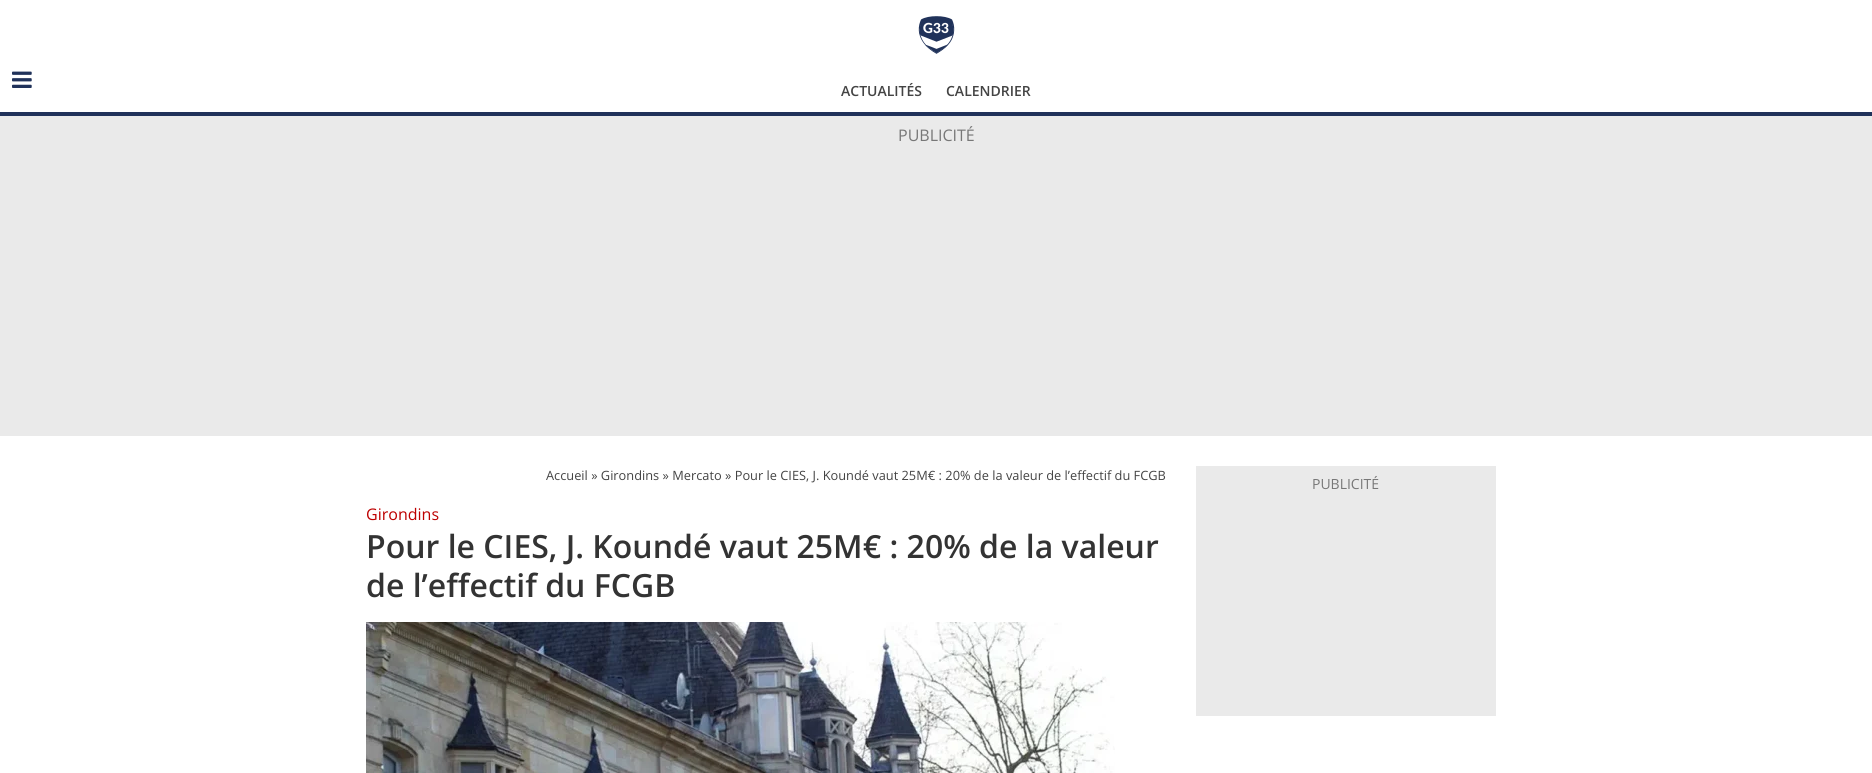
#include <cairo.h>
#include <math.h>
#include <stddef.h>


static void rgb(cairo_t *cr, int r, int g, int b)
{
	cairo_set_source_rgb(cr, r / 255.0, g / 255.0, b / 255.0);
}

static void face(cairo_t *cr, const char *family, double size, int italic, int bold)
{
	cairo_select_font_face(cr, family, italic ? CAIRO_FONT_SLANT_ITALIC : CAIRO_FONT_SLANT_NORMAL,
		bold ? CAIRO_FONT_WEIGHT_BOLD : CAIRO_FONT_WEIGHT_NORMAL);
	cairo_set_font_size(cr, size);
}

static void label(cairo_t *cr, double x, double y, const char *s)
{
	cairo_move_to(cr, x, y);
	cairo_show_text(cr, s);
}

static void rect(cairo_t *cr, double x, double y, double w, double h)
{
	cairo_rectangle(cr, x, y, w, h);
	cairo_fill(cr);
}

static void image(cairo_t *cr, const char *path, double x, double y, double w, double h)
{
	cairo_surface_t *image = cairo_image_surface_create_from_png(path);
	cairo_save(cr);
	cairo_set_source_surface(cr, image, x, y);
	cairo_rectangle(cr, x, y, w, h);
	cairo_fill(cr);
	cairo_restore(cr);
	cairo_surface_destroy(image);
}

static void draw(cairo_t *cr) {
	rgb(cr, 234, 234, 234);
	cairo_paint(cr);
	rgb(cr, 255, 255, 255);
	rect(cr, 0, 0, 1872, 112);
	image(cr, "image0.png", 918, 16, 37, 38);
	rgb(cr, 32, 50, 90);
	rect(cr, 0, 112, 1872, 4);
	image(cr, "image1.png", 12, 71, 20, 17);
	face(cr, "Open Sans SemiBold", 14, 0, 0);
	rgb(cr, 68, 68, 68);
	label(cr, 841, 96, "ACTUALITÉS");
	label(cr, 946, 96, "CALENDRIER");
	face(cr, "Open Sans", 16, 0, 0);
	rgb(cr, 119, 119, 119);
	label(cr, 898, 141, "PUBLICITÉ");
	rgb(cr, 255, 255, 255);
	rect(cr, 0, 436, 1872, 337);
	face(cr, "Open Sans", 12.8, 0, 0);
	rgb(cr, 68, 68, 68);
	label(cr, 546, 480, "Accueil » Girondins » Mercato » Pour le CIES, J. Koundé vaut 25M€ : 20% de la valeur de l’effectif du FCGB");
	face(cr, "Open Sans", 16, 0, 0);
	rgb(cr, 189, 0, 0);
	label(cr, 366, 520, "Girondins");
	face(cr, "Open Sans SemiBold", 32, 0, 0);
	rgb(cr, 51, 51, 51);
	label(cr, 366, 558, "Pour le CIES, J. Koundé vaut 25M€ : 20% de la valeur");
	label(cr, 366, 597, "de l’effectif du FCGB");
	image(cr, "image2.png", 366, 622, 749, 151);
	rgb(cr, 234, 234, 234);
	rect(cr, 1196, 466, 300, 250);
	face(cr, "Open Sans", 14, 0, 0);
	rgb(cr, 119, 119, 119);
	label(cr, 1312, 489, "PUBLICITÉ");
}

int main(void) {
	cairo_surface_t *surface = cairo_image_surface_create(CAIRO_FORMAT_RGB24, 1872, 773);
	cairo_t *cr = cairo_create(surface);
	cairo_font_options_t *options = cairo_font_options_create();
	cairo_font_options_set_hint_metrics(options, CAIRO_HINT_METRICS_OFF);
	cairo_font_options_set_hint_style(options, CAIRO_HINT_STYLE_NONE);
	cairo_set_font_options(cr, options);
	cairo_set_miter_limit(cr, 4);
	draw(cr);
	cairo_surface_write_to_png(surface, "render.png");
	cairo_font_options_destroy(options);
	cairo_destroy(cr);
	cairo_surface_destroy(surface);
	return 0;
}
